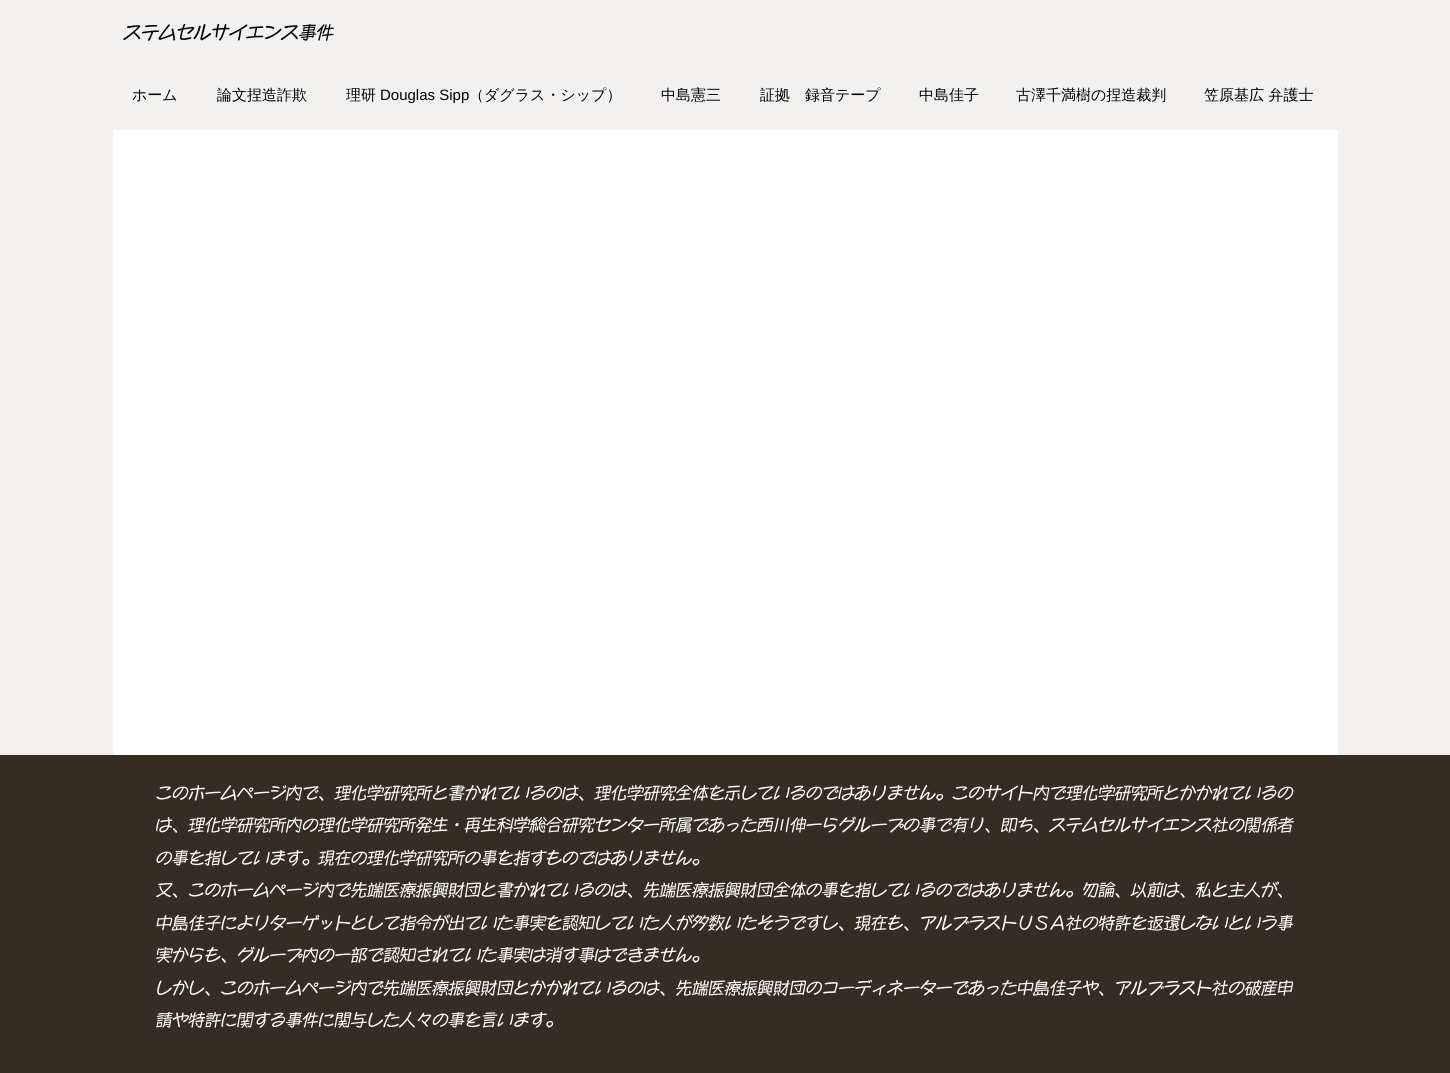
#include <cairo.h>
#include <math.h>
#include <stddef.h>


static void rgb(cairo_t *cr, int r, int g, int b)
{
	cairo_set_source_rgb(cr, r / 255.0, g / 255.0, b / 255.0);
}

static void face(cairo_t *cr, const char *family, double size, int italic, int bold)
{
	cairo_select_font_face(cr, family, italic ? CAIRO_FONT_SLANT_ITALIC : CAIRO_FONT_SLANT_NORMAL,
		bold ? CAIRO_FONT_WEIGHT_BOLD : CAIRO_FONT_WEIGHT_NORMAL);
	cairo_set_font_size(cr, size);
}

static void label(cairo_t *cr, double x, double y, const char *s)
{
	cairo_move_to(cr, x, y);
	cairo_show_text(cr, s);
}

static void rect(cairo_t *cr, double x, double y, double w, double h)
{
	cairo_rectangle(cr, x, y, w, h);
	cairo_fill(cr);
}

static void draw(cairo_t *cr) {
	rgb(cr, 242, 241, 240);
	cairo_paint(cr);
	face(cr, "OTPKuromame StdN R", 17.5, 0, 0);
	rgb(cr, 0, 0, 0);
	label(cr, 124, 39, "ステムセルサイエンス事件");
	face(cr, "WenQuanYi Zen Hei Medium", 15, 0, 0);
	label(cr, 132, 100, "ホーム");
	label(cr, 217, 100, "論文捏造詐欺");
	label(cr, 346, 100, "理研");
	face(cr, "Liberation Sans", 15, 0, 0);
	label(cr, 380, 100, "Douglas Sipp");
	face(cr, "WenQuanYi Zen Hei Medium", 15, 0, 0);
	label(cr, 469, 100, "（ダグラス・シップ）");
	label(cr, 661, 100, "中島憲三");
	label(cr, 760, 100, "証拠　録音テープ");
	label(cr, 919, 100, "中島佳子");
	label(cr, 1016, 100, "古澤千満樹の捏造裁判");
	label(cr, 1204, 100, "笠原基広 弁護士");
	rgb(cr, 255, 255, 255);
	rect(cr, 113, 130, 1225, 625);
	rgb(cr, 53, 45, 34);
	rect(cr, 0, 755, 1450, 318);
	face(cr, "OTPKuromame StdN R", 16.25, 0, 0);
	rgb(cr, 255, 255, 255);
	label(cr, 156, 799, "このホームページ内で、理化学研究所と書かれているのは、理化学研究全体を示しているのではありません。このサイト内で理化学研究所とかかれているの");
	label(cr, 156, 831, "は、理化学研究所内の理化学研究所発生・再生科学総合研究センター所属であった西川伸一らグループの事で有り、即ち、ステムセルサイエンス社の関係者");
	label(cr, 156, 864, "の事を指しています。現在の理化学研究所の事を指すものではありません。");
	label(cr, 156, 896, "又、このホームページ内で先端医療振興財団と書かれているのは、先端医療振興財団全体の事を指しているのではありません。勿論、以前は、私と主人が、");
	label(cr, 156, 929, "中島佳子によりターゲットとして指令が出ていた事実を認知していた人が多数いたそうですし、現在も、アルブラストＵＳＡ社の特許を返還しないという事");
	label(cr, 156, 961, "実からも、グループ内の一部で認知されていた事実は消す事はできません。");
	label(cr, 156, 994, "しかし、このホームページ内で先端医療振興財団とかかれているのは、先端医療振興財団のコーディネーターであった中島佳子や、アルブラスト社の破産申");
	label(cr, 156, 1026, "請や特許に関する事件に関与した人々の事を言います。");
}

int main(void) {
	cairo_surface_t *surface = cairo_image_surface_create(CAIRO_FORMAT_RGB24, 1450, 1073);
	cairo_t *cr = cairo_create(surface);
	cairo_font_options_t *options = cairo_font_options_create();
	cairo_font_options_set_hint_metrics(options, CAIRO_HINT_METRICS_OFF);
	cairo_font_options_set_hint_style(options, CAIRO_HINT_STYLE_NONE);
	cairo_set_font_options(cr, options);
	cairo_set_miter_limit(cr, 4);
	draw(cr);
	cairo_surface_write_to_png(surface, "render.png");
	cairo_font_options_destroy(options);
	cairo_destroy(cr);
	cairo_surface_destroy(surface);
	return 0;
}
